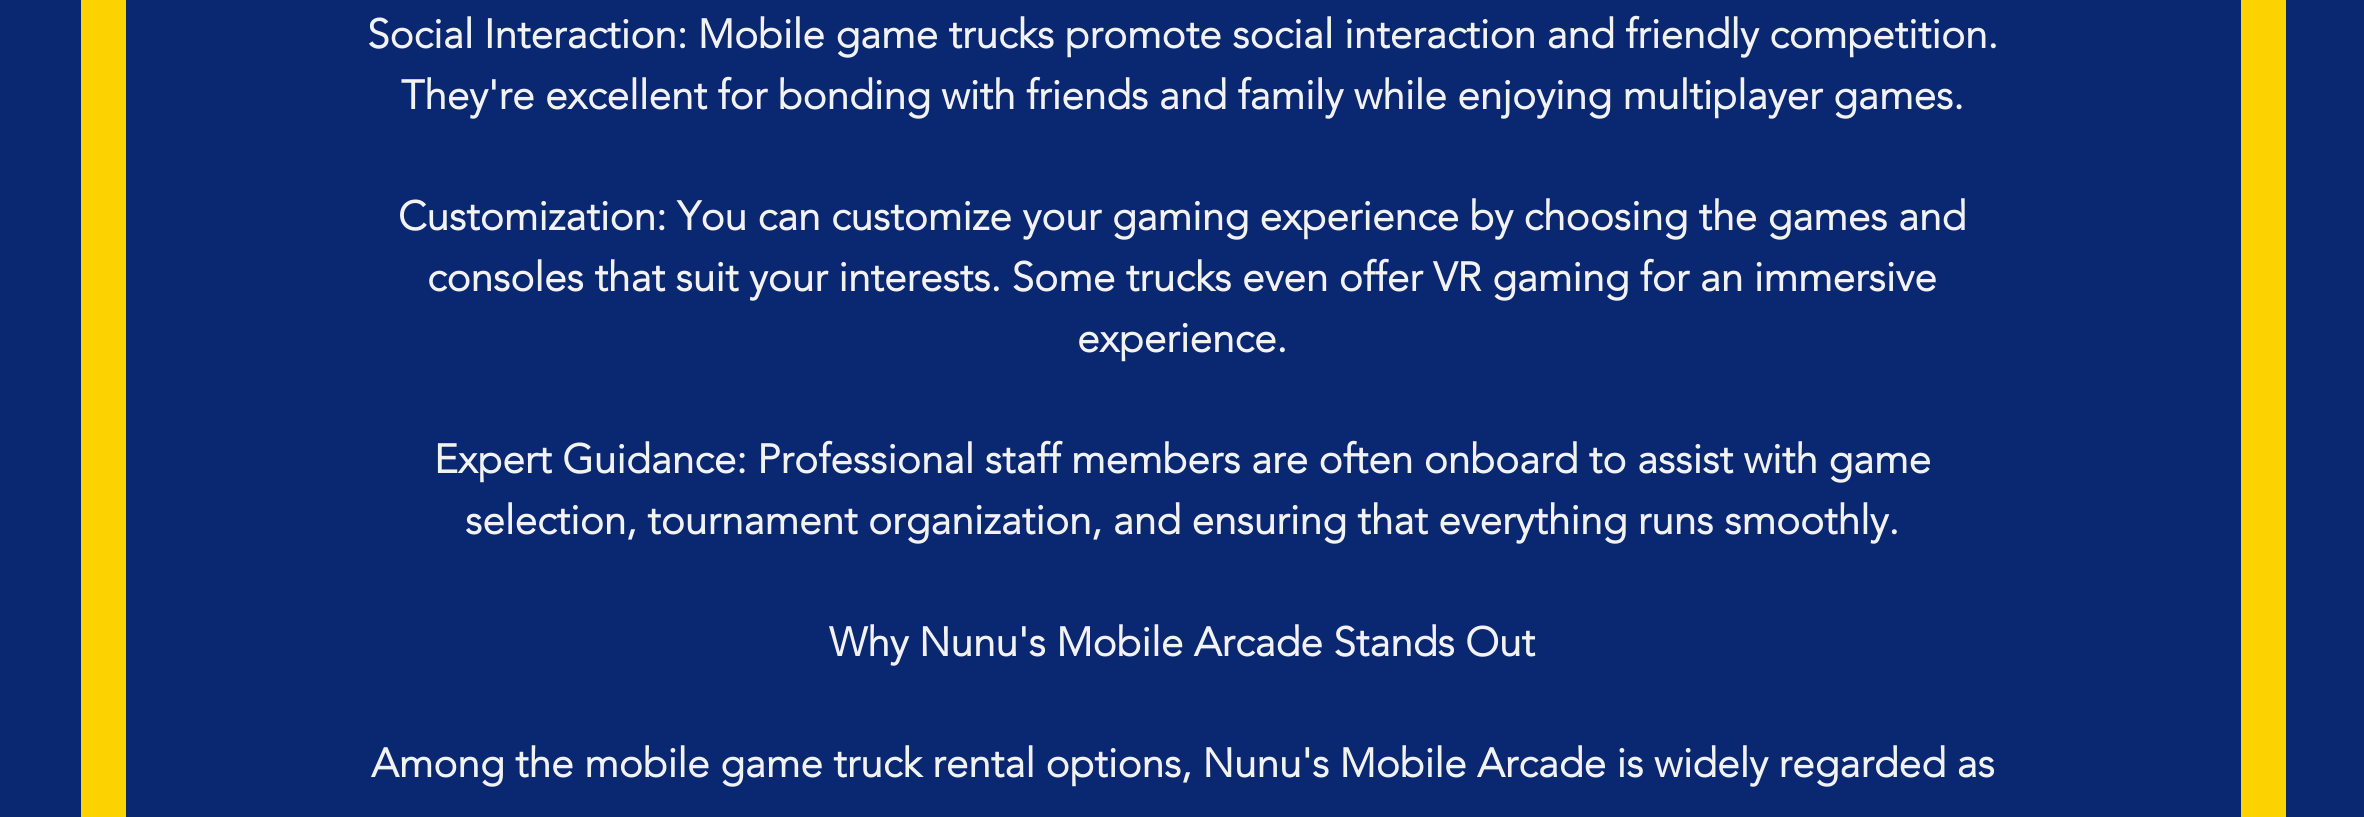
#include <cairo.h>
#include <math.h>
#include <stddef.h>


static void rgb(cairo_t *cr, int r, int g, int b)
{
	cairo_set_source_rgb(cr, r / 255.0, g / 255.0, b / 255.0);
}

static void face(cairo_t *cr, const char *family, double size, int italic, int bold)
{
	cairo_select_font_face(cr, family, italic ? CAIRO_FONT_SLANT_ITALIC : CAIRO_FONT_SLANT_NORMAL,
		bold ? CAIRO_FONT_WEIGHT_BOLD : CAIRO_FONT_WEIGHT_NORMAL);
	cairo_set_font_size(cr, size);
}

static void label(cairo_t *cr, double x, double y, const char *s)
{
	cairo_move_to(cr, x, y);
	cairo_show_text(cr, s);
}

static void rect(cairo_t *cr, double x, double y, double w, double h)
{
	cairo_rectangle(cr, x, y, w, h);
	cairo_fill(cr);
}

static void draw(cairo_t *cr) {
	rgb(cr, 10, 39, 114);
	cairo_paint(cr);
	rgb(cr, 252, 210, 0);
	rect(cr, 81, 0, 2205, 817);
	rgb(cr, 10, 39, 114);
	rect(cr, 126, 0, 2115, 817);
	face(cr, "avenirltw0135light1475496", 40.5, 0, 1);
	rgb(cr, 242, 242, 242);
	label(cr, 367, 48, "Social Interaction: Mobile game trucks promote social interaction and friendly competition.");
	label(cr, 401, 109, "They're excellent for bonding with friends and family while enjoying multiplayer games.");
	label(cr, 398, 230, "Customization: You can customize your gaming experience by choosing the games and");
	label(cr, 427, 291, "consoles that suit your interests. Some trucks even offer VR gaming for an immersive");
	label(cr, 1077, 352, "experience.");
	label(cr, 434, 473, "Expert Guidance: Professional staff members are often onboard to assist with game");
	label(cr, 465, 534, "selection, tournament organization, and ensuring that everything runs smoothly.");
	label(cr, 829, 656, "Why Nunu's Mobile Arcade Stands Out");
	label(cr, 371, 777, "Among the mobile game truck rental options, Nunu's Mobile Arcade is widely regarded as");
}

int main(void) {
	cairo_surface_t *surface = cairo_image_surface_create(CAIRO_FORMAT_RGB24, 2364, 817);
	cairo_t *cr = cairo_create(surface);
	cairo_font_options_t *options = cairo_font_options_create();
	cairo_font_options_set_hint_metrics(options, CAIRO_HINT_METRICS_OFF);
	cairo_font_options_set_hint_style(options, CAIRO_HINT_STYLE_NONE);
	cairo_set_font_options(cr, options);
	cairo_set_miter_limit(cr, 4);
	draw(cr);
	cairo_surface_write_to_png(surface, "render.png");
	cairo_font_options_destroy(options);
	cairo_destroy(cr);
	cairo_surface_destroy(surface);
	return 0;
}
